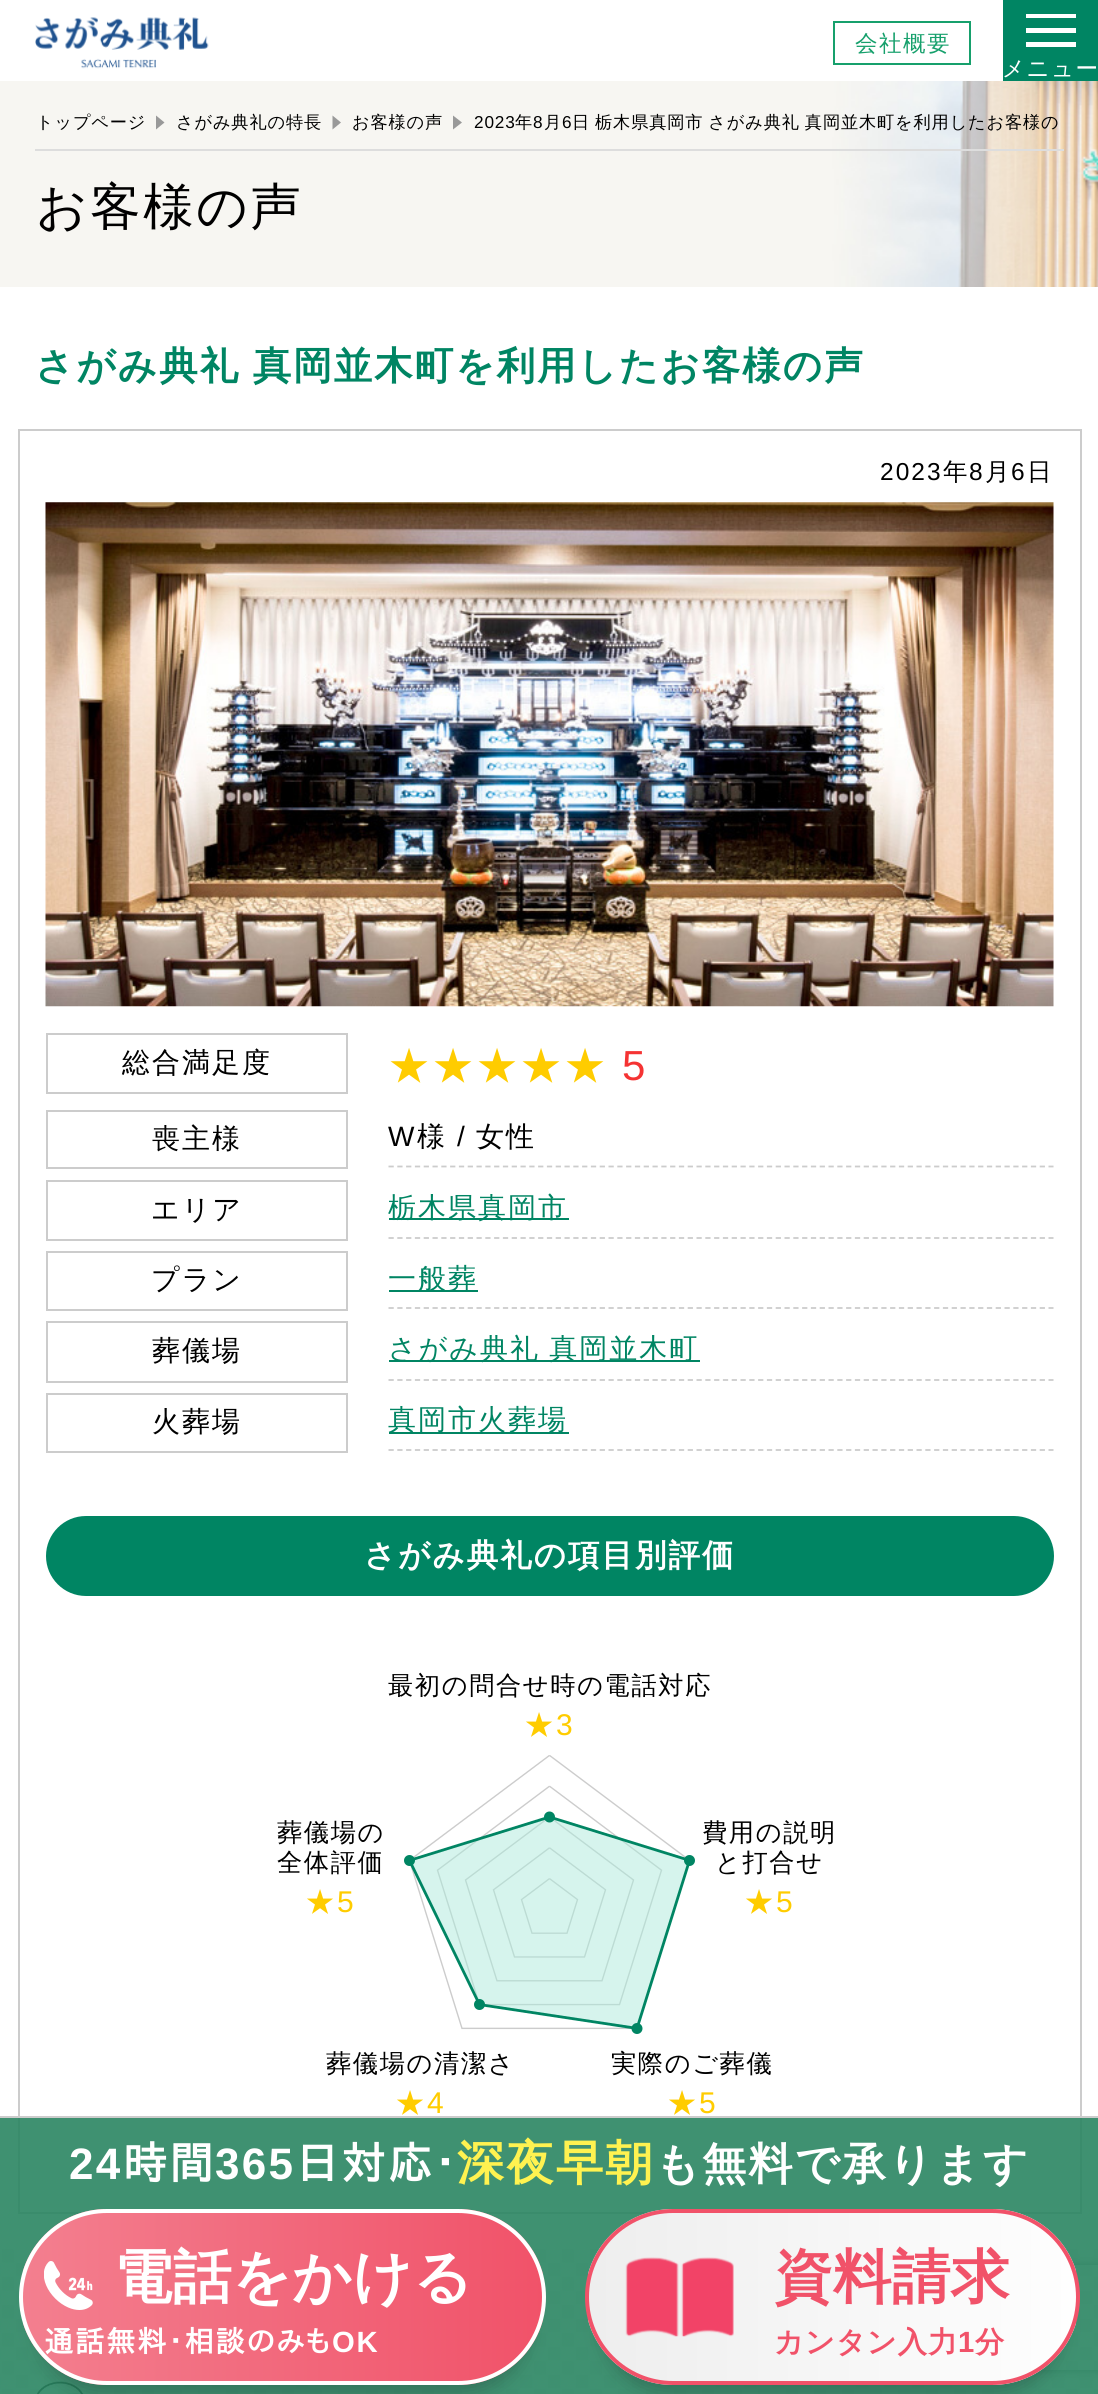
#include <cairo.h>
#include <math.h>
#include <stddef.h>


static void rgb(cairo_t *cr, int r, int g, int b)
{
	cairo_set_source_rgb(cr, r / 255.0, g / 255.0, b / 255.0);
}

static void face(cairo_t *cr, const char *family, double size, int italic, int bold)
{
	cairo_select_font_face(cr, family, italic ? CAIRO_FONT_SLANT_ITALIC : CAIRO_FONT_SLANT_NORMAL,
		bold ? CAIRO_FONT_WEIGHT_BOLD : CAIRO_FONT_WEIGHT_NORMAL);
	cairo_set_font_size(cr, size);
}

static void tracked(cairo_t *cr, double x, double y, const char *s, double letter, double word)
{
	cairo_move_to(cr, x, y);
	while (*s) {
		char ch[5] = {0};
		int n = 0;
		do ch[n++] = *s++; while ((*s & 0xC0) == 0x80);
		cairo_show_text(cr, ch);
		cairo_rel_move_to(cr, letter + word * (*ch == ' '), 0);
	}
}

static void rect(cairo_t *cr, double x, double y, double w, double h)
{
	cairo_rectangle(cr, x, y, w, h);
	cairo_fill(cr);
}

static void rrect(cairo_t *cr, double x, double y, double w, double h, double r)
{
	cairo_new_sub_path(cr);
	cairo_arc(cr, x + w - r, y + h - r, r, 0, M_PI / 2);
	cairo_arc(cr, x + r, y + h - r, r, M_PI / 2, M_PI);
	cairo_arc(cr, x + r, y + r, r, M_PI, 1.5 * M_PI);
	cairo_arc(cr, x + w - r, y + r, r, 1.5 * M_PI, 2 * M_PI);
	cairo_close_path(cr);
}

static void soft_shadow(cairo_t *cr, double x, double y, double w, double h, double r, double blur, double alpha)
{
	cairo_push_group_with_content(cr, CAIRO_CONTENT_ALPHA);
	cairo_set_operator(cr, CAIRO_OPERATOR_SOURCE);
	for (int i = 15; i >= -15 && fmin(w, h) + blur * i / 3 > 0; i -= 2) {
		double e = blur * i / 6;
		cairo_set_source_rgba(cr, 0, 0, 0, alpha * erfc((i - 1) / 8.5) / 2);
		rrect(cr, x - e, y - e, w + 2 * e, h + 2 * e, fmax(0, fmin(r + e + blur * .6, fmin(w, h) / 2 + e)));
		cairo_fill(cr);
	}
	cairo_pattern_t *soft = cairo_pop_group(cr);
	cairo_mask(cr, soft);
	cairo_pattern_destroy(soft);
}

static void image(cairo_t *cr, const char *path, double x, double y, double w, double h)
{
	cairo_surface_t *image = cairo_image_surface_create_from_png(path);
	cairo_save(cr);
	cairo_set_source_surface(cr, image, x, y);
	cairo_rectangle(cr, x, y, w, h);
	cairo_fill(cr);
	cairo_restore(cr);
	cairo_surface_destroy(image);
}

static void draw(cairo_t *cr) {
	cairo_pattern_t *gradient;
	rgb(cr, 255, 255, 255);
	cairo_paint(cr);
	image(cr, "image0.png", 35, 17, 174, 52);
	cairo_rectangle(cr, 834, 22, 136, 42);
	rgb(cr, 22, 160, 108);
	cairo_stroke(cr);
	face(cr, "WenQuanYi Zen Hei Medium", 22.5, 0, 0);
	tracked(cr, 855, 51, "会社概要", 1.5, 0);
	rgb(cr, 0, 133, 99);
	rect(cr, 1003, 0, 95, 81);
	rgb(cr, 255, 255, 255);
	rect(cr, 1026, 14, 50, 4);
	rect(cr, 1026, 28, 50, 5);
	rect(cr, 1026, 42, 50, 5);
	tracked(cr, 1002, 76, "メニュー", 1.5, 0);
	image(cr, "image1.png", 0, 81, 1098, 206);
	rgb(cr, 221, 221, 221);
	rect(cr, 35, 149, 1029, 2);
	face(cr, "WenQuanYi Zen Hei Medium", 17.2, 0, 0);
	rgb(cr, 0, 0, 0);
	tracked(cr, 36, 128, "トップページ", 0.85, 0);
	rgb(cr, 153, 153, 153);
	cairo_new_path(cr);
	cairo_move_to(cr, 156, 129.5);
	cairo_line_to(cr, 156, 115.5);
	cairo_line_to(cr, 164.5, 122.5);
	cairo_close_path(cr);
	cairo_fill(cr);
	rgb(cr, 0, 0, 0);
	tracked(cr, 176, 128, "さがみ典礼の特長", 0.85, 0);
	rgb(cr, 153, 153, 153);
	cairo_new_path(cr);
	cairo_move_to(cr, 332.5, 129.5);
	cairo_line_to(cr, 332.5, 115.5);
	cairo_line_to(cr, 341, 122.5);
	cairo_close_path(cr);
	cairo_fill(cr);
	rgb(cr, 0, 0, 0);
	tracked(cr, 352, 128, "お客様の声", 0.85, 0);
	rgb(cr, 153, 153, 153);
	cairo_new_path(cr);
	cairo_move_to(cr, 453, 129.5);
	cairo_line_to(cr, 453, 115.5);
	cairo_line_to(cr, 462, 122.5);
	cairo_close_path(cr);
	cairo_fill(cr);
	face(cr, "Liberation Sans", 17.2, 0, 0);
	rgb(cr, 0, 0, 0);
	tracked(cr, 474, 128, "2023", 0.85, 0);
	face(cr, "WenQuanYi Zen Hei Medium", 17.2, 0, 0);
	tracked(cr, 515, 128, "年", 0.85, 0);
	face(cr, "Liberation Sans", 17.2, 0, 0);
	tracked(cr, 533, 128, "8", 0.85, 0);
	face(cr, "WenQuanYi Zen Hei Medium", 17.2, 0, 0);
	tracked(cr, 544, 128, "月", 0.85, 0);
	face(cr, "Liberation Sans", 17.2, 0, 0);
	tracked(cr, 562, 128, "6", 0.85, 0);
	face(cr, "WenQuanYi Zen Hei Medium", 17.2, 0, 0);
	tracked(cr, 572, 128, "日 栃木県真岡市 さがみ典礼 真岡並木町を利用したお客様の", 0.85, -1);
	face(cr, "WenQuanYi Zen Hei Medium", 50.5, 0, 0);
	tracked(cr, 36, 224, "お客様の声", 2.5, 0);
	face(cr, "WenQuanYi Zen Hei", 38.5, 0, 1);
	rgb(cr, 0, 133, 99);
	tracked(cr, 35, 379, "さがみ典礼 真岡並木町を利用したお客様の声", 2, -1);
	cairo_rectangle(cr, 19, 430, 1062, 1783);
	rgb(cr, 204, 204, 204);
	cairo_stroke(cr);
	face(cr, "Liberation Sans", 24.5, 0, 0);
	rgb(cr, 0, 0, 0);
	tracked(cr, 880, 480, "2023", 2, 0);
	face(cr, "WenQuanYi Zen Hei Medium", 24.5, 0, 0);
	tracked(cr, 943, 480, "年", 2, 0);
	face(cr, "Liberation Sans", 24.5, 0, 0);
	tracked(cr, 969, 480, "8", 2, 0);
	face(cr, "WenQuanYi Zen Hei Medium", 24.5, 0, 0);
	tracked(cr, 985, 480, "月", 2, 0);
	face(cr, "Liberation Sans", 24.5, 0, 0);
	tracked(cr, 1011, 480, "6", 2, 0);
	face(cr, "WenQuanYi Zen Hei Medium", 24.5, 0, 0);
	tracked(cr, 1027, 480, "日", 2, 0);
	image(cr, "image2.png", 45, 502, 1009, 505);
	cairo_rectangle(cr, 47, 1034, 300, 59);
	rgb(cr, 204, 204, 204);
	cairo_stroke(cr);
	face(cr, "WenQuanYi Zen Hei Medium", 28, 0, 0);
	rgb(cr, 0, 0, 0);
	tracked(cr, 122, 1072, "総合満足度", 2, 0);
	face(cr, "WenQuanYi Zen Hei Medium", 42, 0, 0);
	rgb(cr, 255, 204, 0);
	tracked(cr, 388, 1080, "★★★★★", 2, 0);
	face(cr, "Liberation Sans", 42, 0, 0);
	rgb(cr, 245, 51, 51);
	tracked(cr, 622, 1080, "5", 2, 0);
	cairo_rectangle(cr, 47, 1111, 300, 57);
	rgb(cr, 204, 204, 204);
	cairo_stroke(cr);
	face(cr, "WenQuanYi Zen Hei Medium", 28, 0, 0);
	rgb(cr, 0, 0, 0);
	tracked(cr, 152, 1148, "喪主様", 2, 0);
	cairo_new_path(cr);
	cairo_move_to(cr, 388.5, 1166.5);
	cairo_line_to(cr, 1053.5, 1166.5);
	rgb(cr, 204, 204, 204);
	cairo_set_line_width(cr, 1.8);
	cairo_set_dash(cr, (double[]){5.25, 3.55}, 2, 0);
	cairo_stroke(cr);
	face(cr, "Liberation Sans", 28, 0, 0);
	rgb(cr, 0, 0, 0);
	tracked(cr, 388, 1146, "W", 2, 0);
	face(cr, "WenQuanYi Zen Hei Medium", 28, 0, 0);
	tracked(cr, 417, 1146, "様", 2, 0);
	face(cr, "Liberation Sans", 28, 0, 0);
	tracked(cr, 457, 1146, "/", 2, 0);
	face(cr, "WenQuanYi Zen Hei Medium", 28, 0, 0);
	tracked(cr, 476, 1146, "女性", 2, 0);
	cairo_rectangle(cr, 47, 1181, 300, 59);
	rgb(cr, 204, 204, 204);
	cairo_set_line_width(cr, 2);
	cairo_set_dash(cr, NULL, 0, 0);
	cairo_stroke(cr);
	rgb(cr, 0, 0, 0);
	tracked(cr, 151, 1219, "エリア", 2, 0);
	cairo_new_path(cr);
	cairo_move_to(cr, 388.5, 1238);
	cairo_line_to(cr, 1053.5, 1238);
	rgb(cr, 204, 204, 204);
	cairo_set_line_width(cr, 1.8);
	cairo_set_dash(cr, (double[]){5.25, 3.55}, 2, 0);
	cairo_stroke(cr);
	rgb(cr, 0, 133, 99);
	rect(cr, 389, 1218, 180, 2);
	tracked(cr, 388, 1217, "栃木県真岡市", 2, 0);
	cairo_rectangle(cr, 47, 1252, 300, 58);
	rgb(cr, 204, 204, 204);
	cairo_set_line_width(cr, 2);
	cairo_set_dash(cr, NULL, 0, 0);
	cairo_stroke(cr);
	rgb(cr, 0, 0, 0);
	tracked(cr, 151, 1289, "プラン", 2, 0);
	cairo_new_path(cr);
	cairo_move_to(cr, 388.5, 1308);
	cairo_line_to(cr, 1053.5, 1308);
	rgb(cr, 204, 204, 204);
	cairo_set_line_width(cr, 1.8);
	cairo_set_dash(cr, (double[]){5.25, 3.55}, 2, 0);
	cairo_stroke(cr);
	rgb(cr, 0, 133, 99);
	rect(cr, 389, 1290, 89, 2);
	tracked(cr, 388, 1288, "一般葬", 2, 0);
	cairo_rectangle(cr, 47, 1322, 300, 60);
	rgb(cr, 204, 204, 204);
	cairo_set_line_width(cr, 2);
	cairo_set_dash(cr, NULL, 0, 0);
	cairo_stroke(cr);
	rgb(cr, 0, 0, 0);
	tracked(cr, 152, 1360, "葬儀場", 2, 0);
	cairo_new_path(cr);
	cairo_move_to(cr, 388.5, 1380);
	cairo_line_to(cr, 1053.5, 1380);
	rgb(cr, 204, 204, 204);
	cairo_set_line_width(cr, 1.8);
	cairo_set_dash(cr, (double[]){5.25, 3.55}, 2, 0);
	cairo_stroke(cr);
	rgb(cr, 0, 133, 99);
	rect(cr, 389, 1360, 311, 2);
	tracked(cr, 388, 1358, "さがみ典礼 真岡並木町", 2, -1);
	cairo_rectangle(cr, 47, 1394, 300, 58);
	rgb(cr, 204, 204, 204);
	cairo_set_line_width(cr, 2);
	cairo_set_dash(cr, NULL, 0, 0);
	cairo_stroke(cr);
	rgb(cr, 0, 0, 0);
	tracked(cr, 152, 1431, "火葬場", 2, 0);
	cairo_new_path(cr);
	cairo_move_to(cr, 388.5, 1450);
	cairo_line_to(cr, 1053.5, 1450);
	rgb(cr, 204, 204, 204);
	cairo_set_line_width(cr, 1.8);
	cairo_set_dash(cr, (double[]){5.25, 3.55}, 2, 0);
	cairo_stroke(cr);
	rgb(cr, 0, 133, 99);
	rect(cr, 389, 1432, 180, 2);
	tracked(cr, 388, 1429, "真岡市火葬場", 2, 0);
	rrect(cr, 46, 1516, 1008, 80, 40);
	cairo_fill(cr);
	face(cr, "WenQuanYi Zen Hei", 31.5, 0, 1);
	rgb(cr, 255, 255, 255);
	tracked(cr, 364, 1566, "さがみ典礼の項目別評価", 2, 0);
	face(cr, "WenQuanYi Zen Hei Medium", 25.25, 0, 0);
	rgb(cr, 0, 0, 0);
	tracked(cr, 388, 1694, "最初の問合せ時の電話対応", 1.6, 0);
	face(cr, "WenQuanYi Zen Hei Medium", 30, 0, 0);
	rgb(cr, 255, 204, 0);
	tracked(cr, 524, 1735, "★", 1.6, 0);
	face(cr, "Liberation Sans", 30, 0, 0);
	tracked(cr, 556, 1735, "3", 1.6, 0);
	face(cr, "WenQuanYi Zen Hei Medium", 25.25, 0, 0);
	rgb(cr, 0, 0, 0);
	tracked(cr, 277, 1841, "葬儀場の", 1.6, 0);
	tracked(cr, 277, 1871, "全体評価", 1.6, 0);
	face(cr, "WenQuanYi Zen Hei Medium", 30, 0, 0);
	rgb(cr, 255, 204, 0);
	tracked(cr, 305, 1912, "★", 1.6, 0);
	face(cr, "Liberation Sans", 30, 0, 0);
	tracked(cr, 337, 1912, "5", 1.6, 0);
	face(cr, "WenQuanYi Zen Hei Medium", 25.25, 0, 0);
	rgb(cr, 0, 0, 0);
	tracked(cr, 702, 1841, "費用の説明", 1.6, 0);
	tracked(cr, 715, 1871, "と打合せ", 1.6, 0);
	face(cr, "WenQuanYi Zen Hei Medium", 30, 0, 0);
	rgb(cr, 255, 204, 0);
	tracked(cr, 744, 1912, "★", 1.6, 0);
	face(cr, "Liberation Sans", 30, 0, 0);
	tracked(cr, 776, 1912, "5", 1.6, 0);
	face(cr, "WenQuanYi Zen Hei Medium", 25.25, 0, 0);
	rgb(cr, 0, 0, 0);
	tracked(cr, 326, 2072, "葬儀場の清潔さ", 1.6, 0);
	face(cr, "WenQuanYi Zen Hei Medium", 30, 0, 0);
	rgb(cr, 255, 204, 0);
	tracked(cr, 395, 2113, "★", 1.6, 0);
	face(cr, "Liberation Sans", 30, 0, 0);
	tracked(cr, 427, 2113, "4", 1.6, 0);
	face(cr, "WenQuanYi Zen Hei Medium", 25.25, 0, 0);
	rgb(cr, 0, 0, 0);
	tracked(cr, 611, 2072, "実際のご葬儀", 1.6, 0);
	face(cr, "WenQuanYi Zen Hei Medium", 30, 0, 0);
	rgb(cr, 255, 204, 0);
	tracked(cr, 667, 2113, "★", 1.6, 0);
	face(cr, "Liberation Sans", 30, 0, 0);
	tracked(cr, 699, 2113, "5", 1.6, 0);
	image(cr, "image3.png", 404, 1755, 291, 279);
	image(cr, "image4.png", 0, 2249, 1098, 145);
	image(cr, "image5.png", 37, 2381, 47, 13);
	cairo_save(cr);
	cairo_set_fill_rule(cr, CAIRO_FILL_RULE_EVEN_ODD);
	cairo_new_path(cr);
	cairo_move_to(cr, 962, 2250);
	cairo_line_to(cr, 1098, 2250);
	cairo_line_to(cr, 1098, 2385);
	cairo_line_to(cr, 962, 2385);
	cairo_close_path(cr);
	cairo_move_to(cr, 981, 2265);
	cairo_line_to(cr, 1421, 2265);
	cairo_curve_to(cr, 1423, 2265, 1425, 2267, 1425, 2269);
	cairo_line_to(cr, 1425, 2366);
	cairo_curve_to(cr, 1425, 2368, 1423, 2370, 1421, 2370);
	cairo_line_to(cr, 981, 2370);
	cairo_curve_to(cr, 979, 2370, 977, 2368, 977, 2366);
	cairo_line_to(cr, 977, 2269);
	cairo_curve_to(cr, 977, 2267, 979, 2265, 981, 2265);
	cairo_close_path(cr);
	cairo_clip(cr);
	rgb(cr, 128, 128, 128);
	soft_shadow(cr, 977, 2265, 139, 105, 4, 4.5, 1);
	cairo_restore(cr);
	cairo_set_source_rgba(cr, 0.169, 0.522, 0.384, 0.9);
	rect(cr, 0, 2118, 1098, 276);
	rgb(cr, 204, 204, 204);
	rect(cr, 0, 2116, 1098, 2);
	face(cr, "Liberation Sans", 44, 0, 1);
	rgb(cr, 255, 255, 255);
	tracked(cr, 69, 2179, "24", 2.25, 0);
	face(cr, "IPAPGothic", 44, 0, 1);
	tracked(cr, 123, 2179, "時間", 2.25, 0);
	face(cr, "Liberation Sans", 44, 0, 1);
	tracked(cr, 215, 2179, "365", 2.25, 0);
	face(cr, "IPAPGothic", 44, 0, 1);
	tracked(cr, 295, 2179, "日対応･", 2.25, 0);
	face(cr, "WenQuanYi Zen Hei", 47.25, 0, 1);
	rgb(cr, 255, 242, 80);
	tracked(cr, 457, 2179, "深夜早朝", 2.25, 0);
	face(cr, "WenQuanYi Zen Hei", 44, 0, 1);
	rgb(cr, 255, 255, 255);
	tracked(cr, 655, 2179, "も無料で承ります", 2.25, 0);
	rgb(cr, 7, 2, 5);
	soft_shadow(cr, 37, 2252, 492, 142, 71, 9, 0.2);
	cairo_save(cr);
	rrect(cr, 19, 2209, 527, 176, 88);
	cairo_clip(cr);
	gradient = cairo_pattern_create_linear(23, 2297, 543, 2297);
	cairo_pattern_add_color_stop_rgba(gradient, 0, 0.953, 0.498, 0.561, 1);
	cairo_pattern_add_color_stop_rgba(gradient, 1, 0.945, 0.322, 0.412, 1);
	cairo_set_source(cr, gradient);
	cairo_pattern_destroy(gradient);
	rect(cr, 23, 2209, 520, 176);
	cairo_restore(cr);
	rrect(cr, 21, 2211, 523, 172, 86);
	rgb(cr, 255, 255, 255);
	cairo_set_line_width(cr, 4);
	cairo_set_dash(cr, NULL, 0, 0);
	cairo_stroke(cr);
	image(cr, "image6.png", 44, 2261, 49, 49);
	face(cr, "WenQuanYi Zen Hei", 58.5, 0, 1);
	tracked(cr, 114, 2297, "電話をかける", 0.5, 0);
	face(cr, "IPAPGothic", 29.25, 0, 1);
	tracked(cr, 44, 2352, "通話無料･相談のみも", 1.75, 0);
	face(cr, "Liberation Sans", 29.25, 0, 1);
	tracked(cr, 332, 2352, "OK", 1.75, 0);
	rgb(cr, 7, 2, 5);
	soft_shadow(cr, 602, 2252, 460, 142, 71, 9, 0.2);
	cairo_save(cr);
	rrect(cr, 585, 2209, 495, 176, 88);
	cairo_clip(cr);
	gradient = cairo_pattern_create_linear(1076, 2297, 588, 2297);
	cairo_pattern_add_color_stop_rgba(gradient, 0, 0.996, 0.996, 0.996, 1);
	cairo_pattern_add_color_stop_rgba(gradient, 1, 0.933, 0.933, 0.933, 1);
	cairo_set_source(cr, gradient);
	cairo_pattern_destroy(gradient);
	rect(cr, 588, 2209, 488, 176);
	cairo_restore(cr);
	rrect(cr, 587, 2211, 491, 172, 86);
	rgb(cr, 241, 82, 105);
	cairo_stroke(cr);
	image(cr, "image7.png", 625, 2257, 109, 80);
	face(cr, "WenQuanYi Zen Hei", 58.5, 0, 1);
	tracked(cr, 774, 2297, "資料請求", 0.5, 0);
	face(cr, "WenQuanYi Zen Hei", 29.25, 0, 1);
	tracked(cr, 774, 2352, "カンタン入力", 1, 0);
	face(cr, "Liberation Sans", 29.25, 0, 1);
	tracked(cr, 958, 2352, "1", 1, 0);
	face(cr, "WenQuanYi Zen Hei", 29.25, 0, 1);
	tracked(cr, 975, 2352, "分", 1, 0);
}

int main(void) {
	cairo_surface_t *surface = cairo_image_surface_create(CAIRO_FORMAT_RGB24, 1098, 2394);
	cairo_t *cr = cairo_create(surface);
	cairo_font_options_t *options = cairo_font_options_create();
	cairo_font_options_set_hint_metrics(options, CAIRO_HINT_METRICS_OFF);
	cairo_font_options_set_hint_style(options, CAIRO_HINT_STYLE_NONE);
	cairo_set_font_options(cr, options);
	cairo_set_miter_limit(cr, 4);
	draw(cr);
	cairo_surface_write_to_png(surface, "render.png");
	cairo_font_options_destroy(options);
	cairo_destroy(cr);
	cairo_surface_destroy(surface);
	return 0;
}
